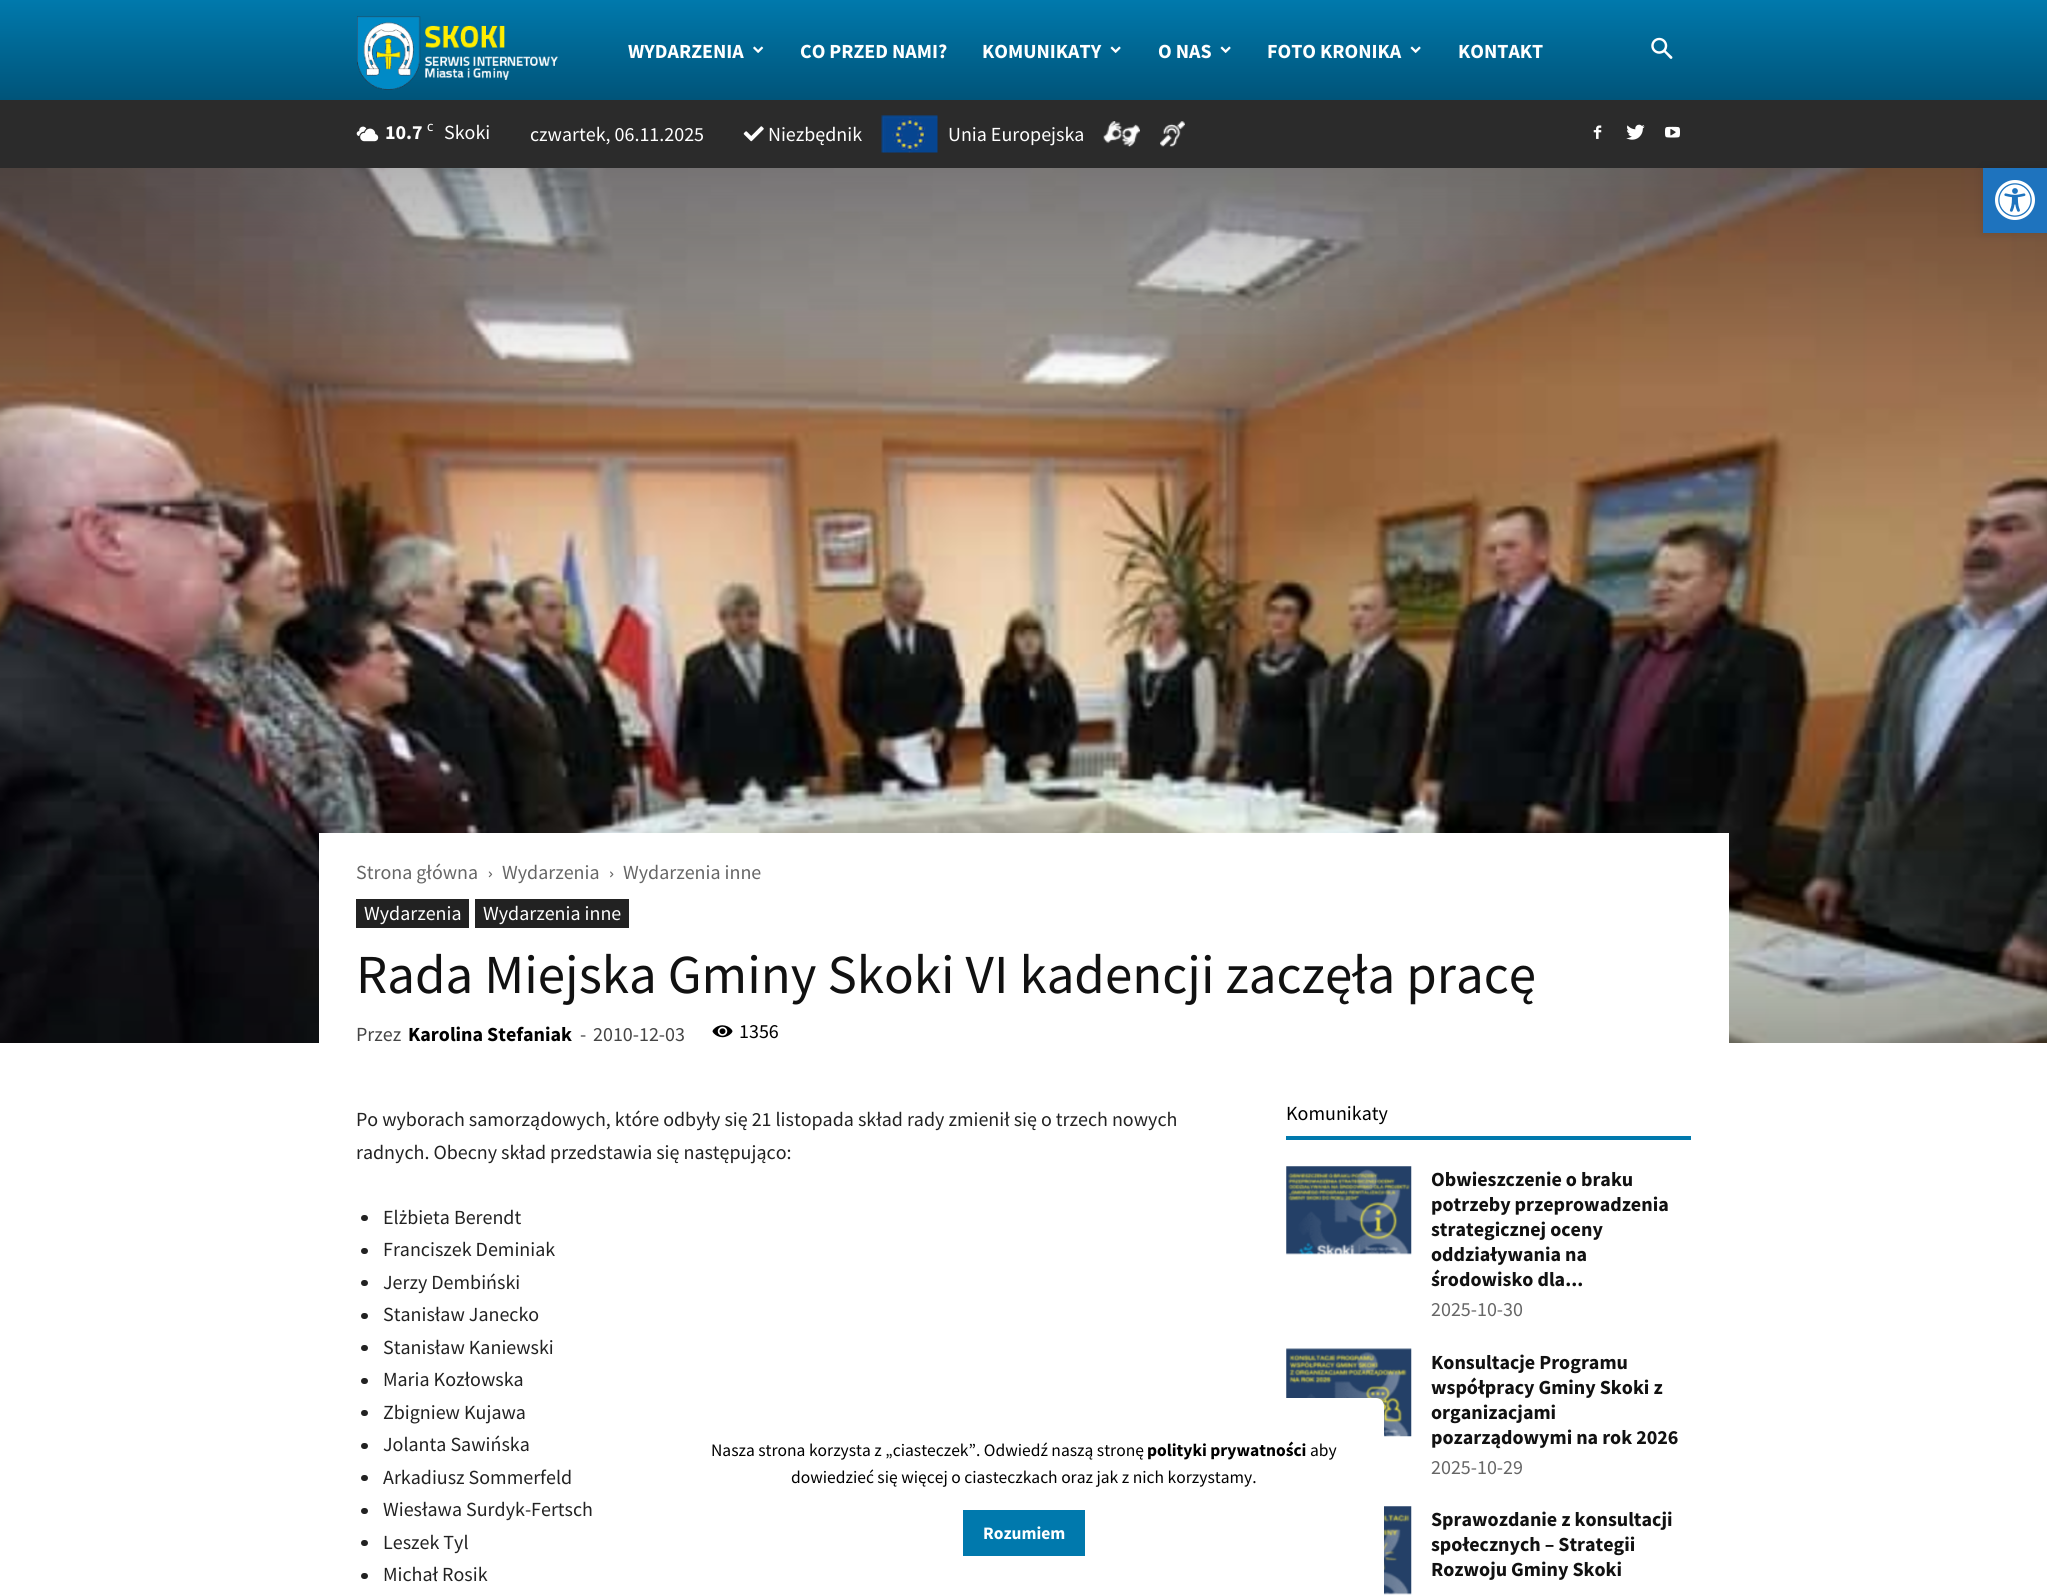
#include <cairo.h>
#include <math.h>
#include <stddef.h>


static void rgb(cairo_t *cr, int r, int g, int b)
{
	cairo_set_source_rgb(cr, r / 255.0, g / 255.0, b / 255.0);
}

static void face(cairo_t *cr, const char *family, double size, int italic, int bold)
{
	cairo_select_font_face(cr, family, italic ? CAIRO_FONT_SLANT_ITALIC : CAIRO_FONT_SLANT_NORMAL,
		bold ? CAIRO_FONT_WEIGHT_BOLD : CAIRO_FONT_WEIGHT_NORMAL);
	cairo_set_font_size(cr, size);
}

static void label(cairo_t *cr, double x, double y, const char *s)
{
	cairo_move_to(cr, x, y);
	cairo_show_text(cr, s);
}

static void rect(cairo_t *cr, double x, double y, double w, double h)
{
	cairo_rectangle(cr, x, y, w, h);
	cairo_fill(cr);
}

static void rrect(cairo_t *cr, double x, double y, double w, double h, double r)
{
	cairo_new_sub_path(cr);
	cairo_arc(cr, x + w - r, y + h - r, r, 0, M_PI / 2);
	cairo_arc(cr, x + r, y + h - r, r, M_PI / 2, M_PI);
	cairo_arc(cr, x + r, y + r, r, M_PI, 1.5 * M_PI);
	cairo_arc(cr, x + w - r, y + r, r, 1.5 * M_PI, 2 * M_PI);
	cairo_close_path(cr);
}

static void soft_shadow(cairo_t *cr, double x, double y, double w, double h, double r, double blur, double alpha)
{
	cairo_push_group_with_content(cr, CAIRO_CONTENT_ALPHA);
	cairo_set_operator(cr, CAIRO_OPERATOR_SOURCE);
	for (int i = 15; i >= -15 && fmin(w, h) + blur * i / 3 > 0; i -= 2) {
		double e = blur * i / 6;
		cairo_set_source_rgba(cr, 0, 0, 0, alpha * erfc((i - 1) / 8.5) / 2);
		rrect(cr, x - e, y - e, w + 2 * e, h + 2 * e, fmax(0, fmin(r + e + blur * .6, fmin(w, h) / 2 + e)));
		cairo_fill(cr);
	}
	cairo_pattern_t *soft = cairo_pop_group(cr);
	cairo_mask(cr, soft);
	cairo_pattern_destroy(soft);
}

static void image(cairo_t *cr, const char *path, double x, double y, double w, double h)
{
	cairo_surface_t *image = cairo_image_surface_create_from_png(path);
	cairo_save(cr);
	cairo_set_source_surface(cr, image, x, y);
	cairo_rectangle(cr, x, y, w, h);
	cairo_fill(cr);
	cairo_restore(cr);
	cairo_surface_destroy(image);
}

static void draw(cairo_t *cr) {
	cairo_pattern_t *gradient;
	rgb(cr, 255, 255, 255);
	cairo_paint(cr);
	gradient = cairo_pattern_create_linear(1024, 0, 1024, 100);
	cairo_pattern_add_color_stop_rgba(gradient, 0, 0, 0.475, 0.675, 1);
	cairo_pattern_add_color_stop_rgba(gradient, 1, 0, 0.329, 0.475, 1);
	cairo_set_source(cr, gradient);
	cairo_pattern_destroy(gradient);
	rect(cr, 0, 0, 2047, 100);
	image(cr, "image0.png", 357, 16, 202, 74);
	face(cr, "Source Sans Pro", 20, 0, 1);
	rgb(cr, 255, 255, 255);
	label(cr, 628, 58, "WYDARZENIA");
	image(cr, "image1.png", 753, 46, 11, 7);
	label(cr, 800, 58, "CO PRZED NAMI?");
	label(cr, 982, 58, "KOMUNIKATY");
	image(cr, "image2.png", 1110, 46, 11, 7);
	label(cr, 1158, 58, "O NAS");
	image(cr, "image2.png", 1220, 46, 11, 7);
	label(cr, 1267, 58, "FOTO KRONIKA");
	image(cr, "image2.png", 1410, 46, 11, 7);
	label(cr, 1458, 58, "KONTAKT");
	image(cr, "image3.png", 1651, 37, 22, 22);
	rgb(cr, 43, 43, 43);
	rect(cr, 0, 100, 2047, 68);
	image(cr, "image4.png", 356, 126, 23, 16);
	rgb(cr, 255, 255, 255);
	label(cr, 385, 139, "10.7");
	face(cr, "Open Sans SemiBold", 10, 0, 0);
	label(cr, 427, 131, "C");
	face(cr, "Source Sans Pro", 20, 0, 0);
	label(cr, 444, 139, "Skoki");
	label(cr, 530, 141, "czwartek, 06.11.2025");
	image(cr, "image5.png", 743, 126, 21, 16);
	label(cr, 768, 141, "Niezbędnik");
	image(cr, "image6.png", 881, 115, 57, 38);
	label(cr, 948, 141, "Unia Europejska");
	image(cr, "image7.png", 1103, 121, 37, 26);
	image(cr, "image8.png", 1160, 121, 25, 26);
	image(cr, "image9.png", 1593, 125, 9, 14);
	image(cr, "image10.png", 1626, 124, 19, 16);
	image(cr, "image11.png", 1665, 126, 15, 12);
	image(cr, "image12.png", 0, 168, 2047, 875);
	rect(cr, 319, 833, 1410, 210);
	rgb(cr, 102, 102, 102);
	label(cr, 356, 879, "Strona główna");
	image(cr, "image13.png", 488, 871, 5, 7);
	label(cr, 502, 879, "Wydarzenia");
	image(cr, "image14.png", 610, 871, 4, 7);
	label(cr, 623, 879, "Wydarzenia inne");
	rgb(cr, 34, 34, 34);
	rect(cr, 356, 899, 113, 29);
	rgb(cr, 255, 255, 255);
	label(cr, 364, 920, "Wydarzenia");
	rgb(cr, 34, 34, 34);
	rect(cr, 475, 899, 154, 29);
	rgb(cr, 255, 255, 255);
	label(cr, 483, 920, "Wydarzenia inne");
	face(cr, "Source Sans Pro", 55, 0, 0);
	rgb(cr, 17, 17, 17);
	label(cr, 356, 993, "Rada Miejska Gminy Skoki VI kadencji zaczęła pracę");
	face(cr, "Source Sans Pro", 20, 0, 0);
	rgb(cr, 68, 68, 68);
	label(cr, 356, 1041, "Przez");
	face(cr, "Source Sans Pro", 20, 0, 1);
	rgb(cr, 0, 0, 0);
	label(cr, 408, 1041, "Karolina Stefaniak");
	face(cr, "Source Sans Pro", 20, 0, 0);
	rgb(cr, 68, 68, 68);
	label(cr, 580, 1041, "-");
	label(cr, 593, 1041, "2010-12-03");
	image(cr, "image15.png", 712, 1025, 21, 13);
	rgb(cr, 0, 0, 0);
	label(cr, 739, 1038, "1356");
	rgb(cr, 34, 34, 34);
	label(cr, 356, 1126, "Po wyborach samorządowych, które odbyły się 21 listopada skład rady zmienił się o trzech nowych");
	label(cr, 356, 1159, "radnych. Obecny skład przedstawia się następująco:");
	rrect(cr, 361, 1215, 7, 6, 3);
	cairo_fill(cr);
	label(cr, 383, 1224, "Elżbieta Berendt");
	rrect(cr, 361, 1248, 7, 6, 3);
	cairo_fill(cr);
	label(cr, 383, 1256, "Franciszek Deminiak");
	rrect(cr, 361, 1280, 7, 6, 3);
	cairo_fill(cr);
	label(cr, 383, 1289, "Jerzy Dembiński");
	rrect(cr, 361, 1313, 7, 6, 3);
	cairo_fill(cr);
	label(cr, 383, 1321, "Stanisław Janecko");
	rrect(cr, 361, 1345, 7, 6, 3);
	cairo_fill(cr);
	label(cr, 383, 1354, "Stanisław Kaniewski");
	rrect(cr, 361, 1378, 7, 6, 3);
	cairo_fill(cr);
	label(cr, 383, 1386, "Maria Kozłowska");
	rrect(cr, 361, 1410, 7, 6, 3);
	cairo_fill(cr);
	label(cr, 383, 1419, "Zbigniew Kujawa");
	rrect(cr, 361, 1443, 7, 6, 3);
	cairo_fill(cr);
	label(cr, 383, 1451, "Jolanta Sawińska");
	rrect(cr, 361, 1475, 7, 6, 3);
	cairo_fill(cr);
	label(cr, 383, 1484, "Arkadiusz Sommerfeld");
	rrect(cr, 361, 1508, 7, 6, 3);
	cairo_fill(cr);
	label(cr, 383, 1516, "Wiesława Surdyk-Fertsch");
	rrect(cr, 361, 1540, 7, 6, 3);
	cairo_fill(cr);
	label(cr, 383, 1549, "Leszek Tyl");
	rrect(cr, 361, 1573, 7, 6, 3);
	cairo_fill(cr);
	label(cr, 383, 1581, "Michał Rosik");
	rgb(cr, 0, 0, 0);
	label(cr, 1286, 1120, "Komunikaty");
	rgb(cr, 0, 121, 173);
	rect(cr, 1286, 1136, 405, 4);
	image(cr, "image16.png", 1286, 1166, 126, 89);
	face(cr, "Source Sans Pro", 20, 0, 1);
	rgb(cr, 17, 17, 17);
	label(cr, 1431, 1186, "Obwieszczenie o braku");
	label(cr, 1431, 1211, "potrzeby przeprowadzenia");
	label(cr, 1431, 1236, "strategicznej oceny");
	label(cr, 1431, 1261, "oddziaływania na");
	label(cr, 1431, 1286, "środowisko dla...");
	face(cr, "Source Sans Pro", 20, 0, 0);
	rgb(cr, 102, 102, 102);
	label(cr, 1431, 1316, "2025-10-30");
	image(cr, "image17.png", 1286, 1348, 126, 89);
	face(cr, "Source Sans Pro", 20, 0, 1);
	rgb(cr, 17, 17, 17);
	label(cr, 1431, 1369, "Konsultacje Programu");
	label(cr, 1431, 1394, "współpracy Gminy Skoki z");
	label(cr, 1431, 1419, "organizacjami");
	label(cr, 1431, 1444, "pozarządowymi na rok 2026");
	face(cr, "Source Sans Pro", 20, 0, 0);
	rgb(cr, 102, 102, 102);
	label(cr, 1431, 1474, "2025-10-29");
	image(cr, "image18.png", 1384, 1506, 28, 89);
	face(cr, "Source Sans Pro", 20, 0, 1);
	rgb(cr, 17, 17, 17);
	label(cr, 1431, 1526, "Sprawozdanie z konsultacji");
	label(cr, 1431, 1551, "społecznych – Strategii");
	label(cr, 1431, 1576, "Rozwoju Gminy Skoki");
	rgb(cr, 0, 0, 0);
	soft_shadow(cr, 1983, 168, 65, 65, 0, 6, 0.1);
	rgb(cr, 30, 115, 190);
	rect(cr, 1983, 168, 64, 65);
	image(cr, "image19.png", 1995, 180, 40, 40);
	rgb(cr, 255, 255, 255);
	cairo_new_path(cr);
	cairo_move_to(cr, 672, 1398);
	cairo_line_to(cr, 1376, 1398);
	cairo_curve_to(cr, 1380.5, 1398, 1384, 1401.5, 1384, 1406);
	cairo_line_to(cr, 1384, 1596);
	cairo_line_to(cr, 664, 1596);
	cairo_line_to(cr, 664, 1406);
	cairo_curve_to(cr, 664, 1401.5, 667.5, 1398, 672, 1398);
	cairo_close_path(cr);
	cairo_fill(cr);
	face(cr, "Source Sans Pro", 17.5, 0, 0);
	rgb(cr, 0, 0, 0);
	label(cr, 711, 1456, "Nasza strona korzysta z „ciasteczek”. Odwiedź naszą stronę");
	face(cr, "Source Sans Pro", 17.5, 0, 1);
	label(cr, 1147, 1456, "polityki prywatności");
	face(cr, "Source Sans Pro", 17.5, 0, 0);
	label(cr, 1310, 1456, "aby");
	label(cr, 791, 1483, "dowiedzieć się więcej o ciasteczkach oraz jak z nich korzystamy.");
	rgb(cr, 0, 121, 173);
	rect(cr, 963, 1510, 122, 46);
	face(cr, "Source Sans Pro", 17.5, 0, 1);
	rgb(cr, 255, 255, 255);
	label(cr, 983, 1539, "Rozumiem");
}

int main(void) {
	cairo_surface_t *surface = cairo_image_surface_create(CAIRO_FORMAT_RGB24, 2047, 1596);
	cairo_t *cr = cairo_create(surface);
	cairo_font_options_t *options = cairo_font_options_create();
	cairo_font_options_set_hint_metrics(options, CAIRO_HINT_METRICS_OFF);
	cairo_font_options_set_hint_style(options, CAIRO_HINT_STYLE_NONE);
	cairo_set_font_options(cr, options);
	cairo_set_miter_limit(cr, 4);
	draw(cr);
	cairo_surface_write_to_png(surface, "render.png");
	cairo_font_options_destroy(options);
	cairo_destroy(cr);
	cairo_surface_destroy(surface);
	return 0;
}
